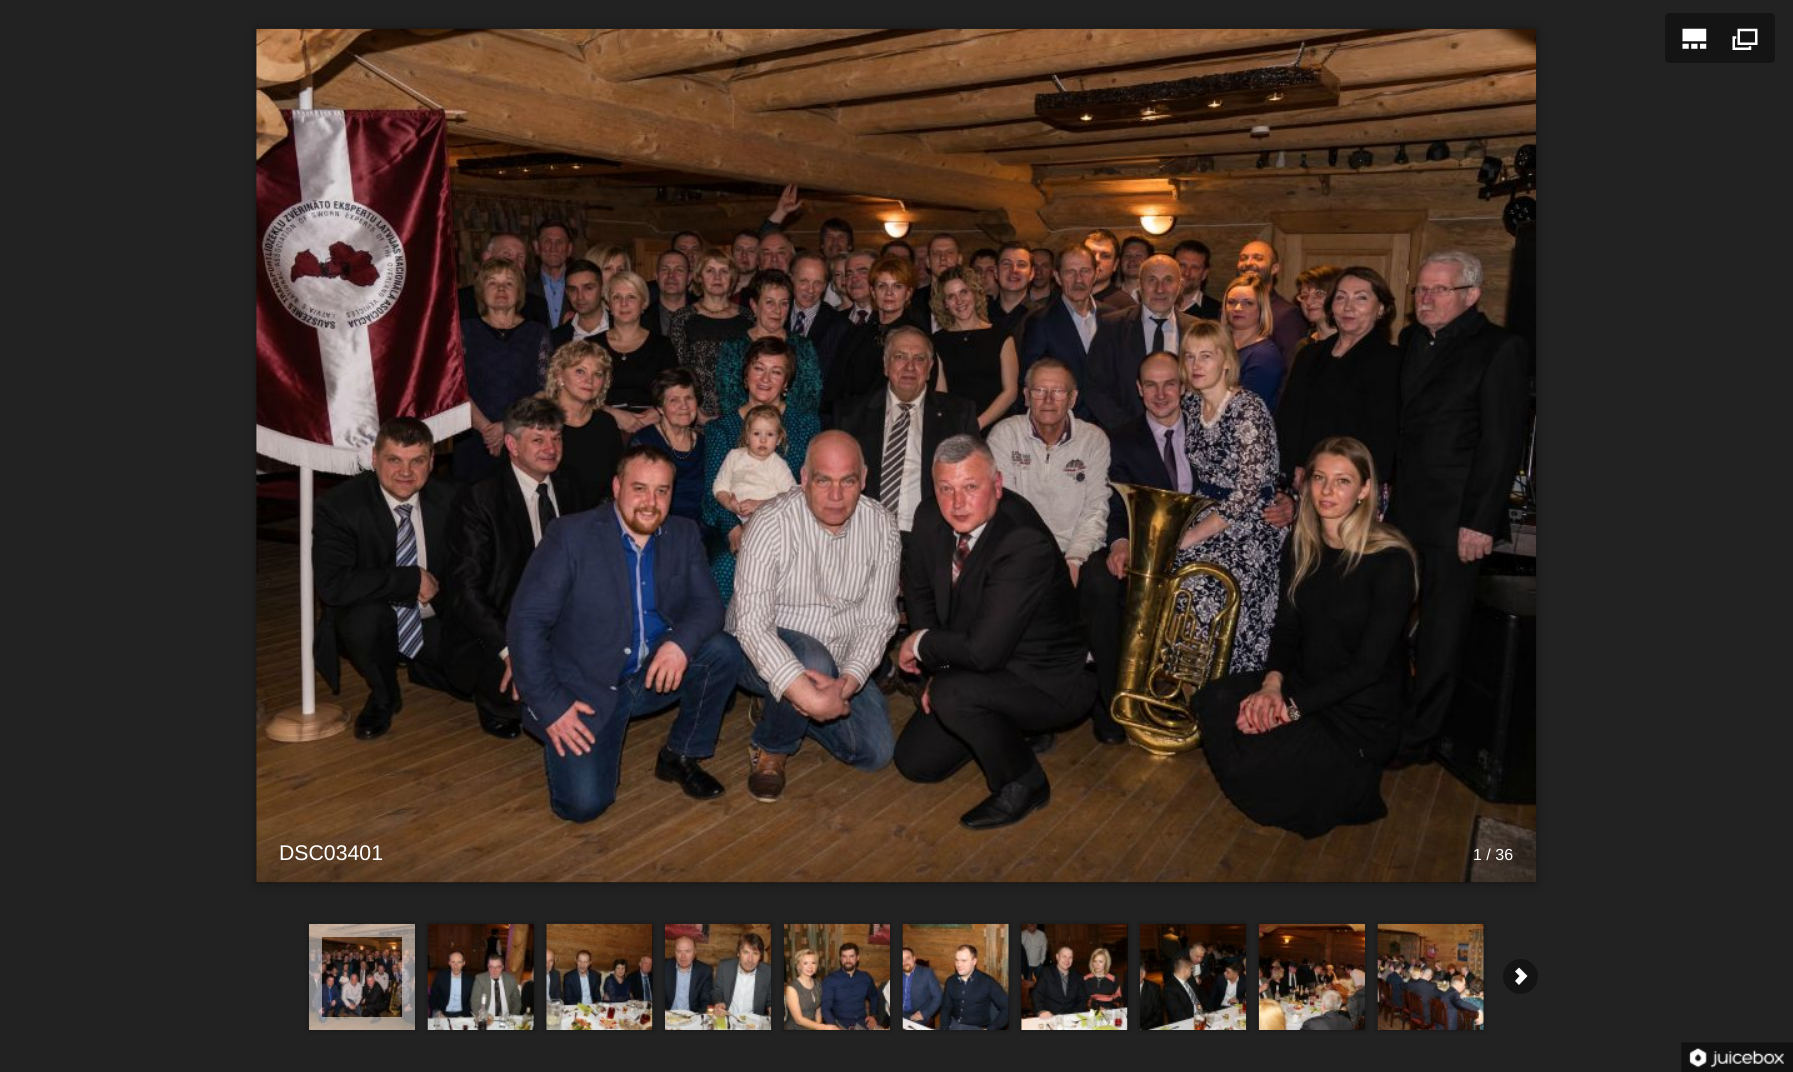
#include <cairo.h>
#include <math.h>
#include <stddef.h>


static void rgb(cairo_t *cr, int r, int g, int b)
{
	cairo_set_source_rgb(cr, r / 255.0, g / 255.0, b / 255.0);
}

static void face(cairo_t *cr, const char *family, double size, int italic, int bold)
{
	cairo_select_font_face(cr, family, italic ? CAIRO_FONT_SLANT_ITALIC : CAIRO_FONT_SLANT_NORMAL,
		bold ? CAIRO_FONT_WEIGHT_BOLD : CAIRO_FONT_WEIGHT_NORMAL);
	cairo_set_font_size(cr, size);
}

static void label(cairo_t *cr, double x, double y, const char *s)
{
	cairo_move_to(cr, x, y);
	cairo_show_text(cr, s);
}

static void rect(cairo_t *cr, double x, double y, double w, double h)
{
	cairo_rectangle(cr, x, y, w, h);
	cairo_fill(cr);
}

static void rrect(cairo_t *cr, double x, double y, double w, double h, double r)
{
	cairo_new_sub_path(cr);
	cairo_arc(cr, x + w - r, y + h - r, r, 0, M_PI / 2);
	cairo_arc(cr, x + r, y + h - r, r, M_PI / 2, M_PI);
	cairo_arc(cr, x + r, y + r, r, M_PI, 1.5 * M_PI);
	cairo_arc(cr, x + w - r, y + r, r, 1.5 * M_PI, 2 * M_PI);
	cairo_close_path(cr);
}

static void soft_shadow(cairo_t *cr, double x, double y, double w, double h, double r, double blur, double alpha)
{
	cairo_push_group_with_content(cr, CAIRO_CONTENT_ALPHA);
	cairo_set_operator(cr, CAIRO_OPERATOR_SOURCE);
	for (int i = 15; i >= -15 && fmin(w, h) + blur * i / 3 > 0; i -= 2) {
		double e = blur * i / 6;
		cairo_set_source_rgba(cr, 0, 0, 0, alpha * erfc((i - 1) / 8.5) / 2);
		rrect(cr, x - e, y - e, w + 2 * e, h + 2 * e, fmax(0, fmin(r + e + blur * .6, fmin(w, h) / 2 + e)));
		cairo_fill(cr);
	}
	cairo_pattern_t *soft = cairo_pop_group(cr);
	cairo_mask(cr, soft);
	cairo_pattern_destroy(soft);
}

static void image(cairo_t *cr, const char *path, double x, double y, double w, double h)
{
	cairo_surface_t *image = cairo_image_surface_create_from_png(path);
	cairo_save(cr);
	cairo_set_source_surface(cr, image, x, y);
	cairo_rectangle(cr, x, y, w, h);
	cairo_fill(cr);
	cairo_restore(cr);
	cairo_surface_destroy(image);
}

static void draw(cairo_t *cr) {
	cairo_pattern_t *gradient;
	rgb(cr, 34, 34, 34);
	cairo_paint(cr);
	rgb(cr, 0, 0, 0);
	soft_shadow(cr, 256, 29, 1280, 854, 0, 6, 0.4);
	image(cr, "image0.png", 256, 28, 1281, 855);
	rgb(cr, 20, 20, 20);
	rrect(cr, 1665, 13, 110, 50, 4);
	cairo_fill(cr);
	image(cr, "image1.png", 1682, 28, 25, 21);
	image(cr, "image2.png", 1732, 28, 26, 22);
	gradient = cairo_pattern_create_linear(896, 824, 896, 883);
	cairo_pattern_add_color_stop_rgba(gradient, 0, 0, 0, 0, 0);
	cairo_pattern_add_color_stop_rgba(gradient, 1, 0, 0, 0, 0.3);
	cairo_set_source(cr, gradient);
	cairo_pattern_destroy(gradient);
	rect(cr, 256, 828, 1280, 55);
	face(cr, "Liberation Sans", 21.25, 0, 0);
	rgb(cr, 255, 255, 255);
	label(cr, 279, 860, "DSC03401");
	face(cr, "Liberation Sans", 16, 0, 0);
	label(cr, 1473, 860, "1 / 36");
	rgb(cr, 0, 0, 0);
	soft_shadow(cr, 309, 924, 106, 106, 0, 3, 0.4);
	image(cr, "image3.png", 308, 923, 107, 107);
	cairo_rectangle(cr, 315.5, 930.5, 93, 93);
	cairo_set_source_rgba(cr, 1, 1, 1, 0.5);
	cairo_set_line_width(cr, 13);
	cairo_stroke(cr);
	rgb(cr, 0, 0, 0);
	soft_shadow(cr, 428, 924, 106, 106, 0, 3, 0.4);
	rgb(cr, 17, 17, 17);
	rect(cr, 533, 924, 1, 106);
	image(cr, "image4.png", 427, 923, 107, 107);
	rgb(cr, 0, 0, 0);
	soft_shadow(cr, 546, 924, 107, 106, 0, 3, 0.4);
	cairo_set_source_rgba(cr, 0, 0, 0, 0.5);
	rect(cr, 546, 924, 107, 106);
	image(cr, "image5.png", 546, 923, 107, 107);
	rgb(cr, 0, 0, 0);
	soft_shadow(cr, 665, 924, 106, 106, 0, 3, 0.4);
	image(cr, "image6.png", 665, 923, 107, 107);
	soft_shadow(cr, 784, 924, 106, 106, 0, 3, 0.4);
	image(cr, "image7.png", 783, 923, 107, 107);
	soft_shadow(cr, 903, 924, 106, 106, 0, 3, 0.4);
	rgb(cr, 17, 17, 17);
	rect(cr, 1008, 924, 1, 106);
	image(cr, "image8.png", 902, 923, 107, 107);
	rgb(cr, 0, 0, 0);
	soft_shadow(cr, 1021, 924, 107, 106, 0, 3, 0.4);
	cairo_set_source_rgba(cr, 0, 0, 0, 0.5);
	rect(cr, 1021, 924, 107, 106);
	image(cr, "image9.png", 1021, 924, 107, 106);
	rgb(cr, 0, 0, 0);
	soft_shadow(cr, 1140, 924, 106, 106, 0, 3, 0.4);
	image(cr, "image10.png", 1140, 924, 107, 106);
	soft_shadow(cr, 1259, 924, 106, 106, 0, 3, 0.4);
	image(cr, "image11.png", 1258, 923, 107, 107);
	soft_shadow(cr, 1378, 924, 106, 106, 0, 3, 0.4);
	rgb(cr, 17, 17, 17);
	rect(cr, 1483, 924, 1, 106);
	image(cr, "image12.png", 1377, 923, 107, 107);
	rgb(cr, 20, 20, 20);
	cairo_arc(cr, 1520.5, 976.5, 17.5, 0, 2 * M_PI);
	cairo_fill(cr);
	rgb(cr, 255, 255, 255);
	cairo_new_path(cr);
	cairo_move_to(cr, 1515, 981);
	cairo_line_to(cr, 1519, 985);
	cairo_line_to(cr, 1527.5, 976);
	cairo_line_to(cr, 1519, 967.5);
	cairo_line_to(cr, 1515, 971.5);
	cairo_line_to(cr, 1519.5, 976);
	cairo_close_path(cr);
	cairo_fill(cr);
	image(cr, "image13.png", 1681, 1042, 112, 30);
}

int main(void) {
	cairo_surface_t *surface = cairo_image_surface_create(CAIRO_FORMAT_RGB24, 1793, 1072);
	cairo_t *cr = cairo_create(surface);
	cairo_font_options_t *options = cairo_font_options_create();
	cairo_font_options_set_hint_metrics(options, CAIRO_HINT_METRICS_OFF);
	cairo_font_options_set_hint_style(options, CAIRO_HINT_STYLE_NONE);
	cairo_set_font_options(cr, options);
	cairo_set_miter_limit(cr, 4);
	draw(cr);
	cairo_surface_write_to_png(surface, "render.png");
	cairo_font_options_destroy(options);
	cairo_destroy(cr);
	cairo_surface_destroy(surface);
	return 0;
}
